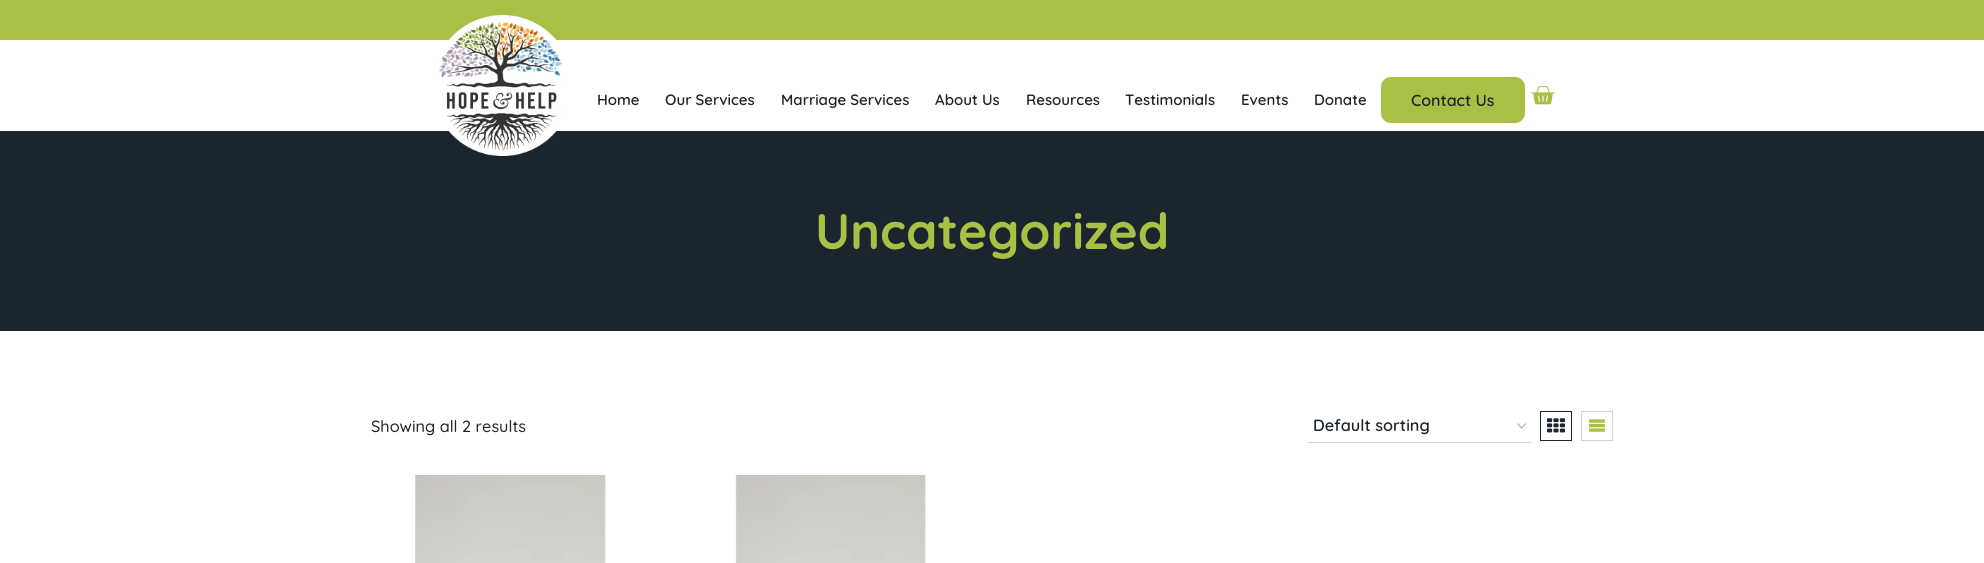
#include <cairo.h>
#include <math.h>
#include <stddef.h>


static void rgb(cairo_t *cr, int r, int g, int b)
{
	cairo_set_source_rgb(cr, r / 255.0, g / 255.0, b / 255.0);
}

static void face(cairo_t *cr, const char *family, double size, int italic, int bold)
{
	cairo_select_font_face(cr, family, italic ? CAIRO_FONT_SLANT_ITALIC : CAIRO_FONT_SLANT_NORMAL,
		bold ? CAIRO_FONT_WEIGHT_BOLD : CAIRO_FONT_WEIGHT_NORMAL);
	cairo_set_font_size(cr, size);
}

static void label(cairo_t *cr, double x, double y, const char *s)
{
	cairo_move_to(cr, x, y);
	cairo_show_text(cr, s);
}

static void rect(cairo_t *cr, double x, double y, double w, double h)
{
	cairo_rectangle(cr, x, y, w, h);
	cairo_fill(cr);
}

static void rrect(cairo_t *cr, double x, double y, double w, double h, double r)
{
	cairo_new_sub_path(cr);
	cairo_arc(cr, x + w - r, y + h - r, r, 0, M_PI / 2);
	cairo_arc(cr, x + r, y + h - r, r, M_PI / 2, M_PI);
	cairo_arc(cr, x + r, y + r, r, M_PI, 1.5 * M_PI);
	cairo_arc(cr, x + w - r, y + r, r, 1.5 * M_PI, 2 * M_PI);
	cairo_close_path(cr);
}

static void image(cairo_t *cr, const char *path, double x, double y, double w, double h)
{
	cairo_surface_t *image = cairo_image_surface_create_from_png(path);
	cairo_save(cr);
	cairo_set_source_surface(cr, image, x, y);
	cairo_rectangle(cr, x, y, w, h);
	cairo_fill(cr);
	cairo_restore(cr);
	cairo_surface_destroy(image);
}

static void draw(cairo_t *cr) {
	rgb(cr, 255, 255, 255);
	cairo_paint(cr);
	rgb(cr, 168, 192, 67);
	rect(cr, 0, 0, 1984, 40);
	rgb(cr, 26, 37, 46);
	rect(cr, 0, 131, 1984, 200);
	image(cr, "image0.png", 439, 15, 124, 141);
	face(cr, "Quicksand SemiBold", 15, 0, 0);
	label(cr, 597, 105, "Home");
	label(cr, 665, 105, "Our Services");
	label(cr, 781, 105, "Marriage Services");
	label(cr, 935, 105, "About Us");
	label(cr, 1026, 105, "Resources");
	label(cr, 1125, 105, "Testimonials");
	label(cr, 1241, 105, "Events");
	label(cr, 1314, 105, "Donate");
	rgb(cr, 168, 192, 67);
	rrect(cr, 1381, 77, 144, 46, 10);
	cairo_fill(cr);
	face(cr, "Quicksand SemiBold", 16, 0, 0);
	rgb(cr, 26, 37, 46);
	label(cr, 1411, 106, "Contact Us");
	image(cr, "image1.png", 1531, 86, 24, 19);
	face(cr, "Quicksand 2 Light", 50, 0, 0);
	rgb(cr, 168, 192, 67);
	label(cr, 815, 249, "Uncategorized");
	face(cr, "Quicksand Light", 16.25, 0, 0);
	rgb(cr, 26, 37, 46);
	label(cr, 371, 432, "Showing all 2 results");
	cairo_new_path(cr);
	cairo_move_to(cr, 1517.5, 423.5);
	cairo_line_to(cr, 1521.5, 428);
	cairo_line_to(cr, 1526, 423.5);
	rgb(cr, 187, 187, 187);
	cairo_set_line_width(cr, 1.4);
	cairo_stroke(cr);
	rgb(cr, 203, 213, 224);
	rect(cr, 1308, 442, 223, 1);
	face(cr, "Quicksand SemiBold", 16.25, 0, 0);
	rgb(cr, 26, 37, 46);
	label(cr, 1313, 431, "Default sorting");
	cairo_rectangle(cr, 1540.5, 411.5, 31, 29);
	cairo_set_line_width(cr, 1);
	cairo_stroke(cr);
	image(cr, "image2.png", 1547, 418, 18, 15);
	cairo_rectangle(cr, 1581.5, 411.5, 31, 29);
	rgb(cr, 203, 213, 224);
	cairo_stroke(cr);
	image(cr, "image3.png", 1589, 419, 16, 13);
	image(cr, "image4.png", 415, 475, 191, 88);
	image(cr, "image5.png", 735, 475, 191, 88);
}

int main(void) {
	cairo_surface_t *surface = cairo_image_surface_create(CAIRO_FORMAT_RGB24, 1984, 563);
	cairo_t *cr = cairo_create(surface);
	cairo_font_options_t *options = cairo_font_options_create();
	cairo_font_options_set_hint_metrics(options, CAIRO_HINT_METRICS_OFF);
	cairo_font_options_set_hint_style(options, CAIRO_HINT_STYLE_NONE);
	cairo_set_font_options(cr, options);
	cairo_set_miter_limit(cr, 4);
	draw(cr);
	cairo_surface_write_to_png(surface, "render.png");
	cairo_font_options_destroy(options);
	cairo_destroy(cr);
	cairo_surface_destroy(surface);
	return 0;
}
